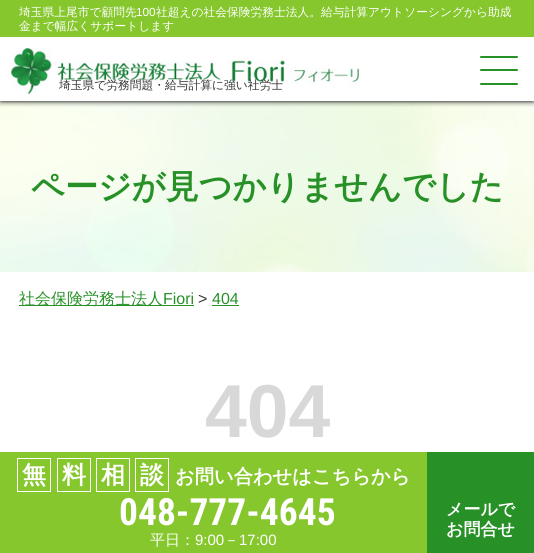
#include <cairo.h>
#include <math.h>
#include <stddef.h>


static void rgb(cairo_t *cr, int r, int g, int b)
{
	cairo_set_source_rgb(cr, r / 255.0, g / 255.0, b / 255.0);
}

static void face(cairo_t *cr, const char *family, double size, int italic, int bold)
{
	cairo_select_font_face(cr, family, italic ? CAIRO_FONT_SLANT_ITALIC : CAIRO_FONT_SLANT_NORMAL,
		bold ? CAIRO_FONT_WEIGHT_BOLD : CAIRO_FONT_WEIGHT_NORMAL);
	cairo_set_font_size(cr, size);
}

static void label(cairo_t *cr, double x, double y, const char *s)
{
	cairo_move_to(cr, x, y);
	cairo_show_text(cr, s);
}

static void rect(cairo_t *cr, double x, double y, double w, double h)
{
	cairo_rectangle(cr, x, y, w, h);
	cairo_fill(cr);
}

static void rrect(cairo_t *cr, double x, double y, double w, double h, double r)
{
	cairo_new_sub_path(cr);
	cairo_arc(cr, x + w - r, y + h - r, r, 0, M_PI / 2);
	cairo_arc(cr, x + r, y + h - r, r, M_PI / 2, M_PI);
	cairo_arc(cr, x + r, y + r, r, M_PI, 1.5 * M_PI);
	cairo_arc(cr, x + w - r, y + r, r, 1.5 * M_PI, 2 * M_PI);
	cairo_close_path(cr);
}

static void soft_shadow(cairo_t *cr, double x, double y, double w, double h, double r, double blur, double alpha)
{
	cairo_push_group_with_content(cr, CAIRO_CONTENT_ALPHA);
	cairo_set_operator(cr, CAIRO_OPERATOR_SOURCE);
	for (int i = 15; i >= -15 && fmin(w, h) + blur * i / 3 > 0; i -= 2) {
		double e = blur * i / 6;
		cairo_set_source_rgba(cr, 0, 0, 0, alpha * erfc((i - 1) / 8.5) / 2);
		rrect(cr, x - e, y - e, w + 2 * e, h + 2 * e, fmax(0, fmin(r + e + blur * .6, fmin(w, h) / 2 + e)));
		cairo_fill(cr);
	}
	cairo_pattern_t *soft = cairo_pop_group(cr);
	cairo_mask(cr, soft);
	cairo_pattern_destroy(soft);
}

static void image(cairo_t *cr, const char *path, double x, double y, double w, double h)
{
	cairo_surface_t *image = cairo_image_surface_create_from_png(path);
	cairo_save(cr);
	cairo_set_source_surface(cr, image, x, y);
	cairo_rectangle(cr, x, y, w, h);
	cairo_fill(cr);
	cairo_restore(cr);
	cairo_surface_destroy(image);
}

static void draw(cairo_t *cr) {
	rgb(cr, 255, 255, 255);
	cairo_paint(cr);
	image(cr, "image1.png", 0, 101, 534, 171);
	cairo_save(cr);
	cairo_rectangle(cr, 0, 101, 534, 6);
	cairo_clip(cr);
	rgb(cr, 0, 0, 0);
	soft_shadow(cr, 0, 0, 534, 101, 0, 3, 1);
	cairo_restore(cr);
	rgb(cr, 134, 199, 45);
	rect(cr, 0, 0, 534, 37);
	face(cr, "WenQuanYi Zen Hei Medium", 11.75, 0, 0);
	rgb(cr, 255, 255, 255);
	label(cr, 19, 16, "埼玉県上尾市で顧問先");
	face(cr, "Liberation Sans", 11.75, 0, 0);
	label(cr, 136, 16, "100");
	face(cr, "WenQuanYi Zen Hei Medium", 11.75, 0, 0);
	label(cr, 156, 16, "社超えの社会保険労務士法人。給与計算アウトソーシングから助成");
	label(cr, 19, 30, "金まで幅広くサポートします");
	cairo_save(cr);
	cairo_rectangle(cr, 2, 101, 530, 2);
	cairo_clip(cr);
	rgb(cr, 0, 0, 0);
	soft_shadow(cr, 3, 43, 528, 58, 0, 1.5, 0.3);
	cairo_restore(cr);
	image(cr, "image0.png", 11, 48, 351, 46);
	rgb(cr, 51, 51, 51);
	label(cr, 59, 89, "埼玉県で労務問題・給与計算に強い社労士");
	rgb(cr, 39, 145, 39);
	rrect(cr, 480, 56, 38, 2, 1);
	cairo_fill(cr);
	rrect(cr, 480, 69, 38, 2, 1);
	cairo_fill(cr);
	rrect(cr, 480, 83, 38, 2, 1);
	cairo_fill(cr);
	face(cr, "WenQuanYi Zen Hei", 33.1, 0, 1);
	label(cr, 31, 198, "ページが見つかりませんでした");
	rect(cr, 19, 305, 175, 1);
	face(cr, "WenQuanYi Zen Hei Medium", 16, 0, 0);
	label(cr, 19, 304, "社会保険労務士法人");
	face(cr, "Liberation Sans", 16, 0, 0);
	label(cr, 163, 304, "Fiori");
	rgb(cr, 51, 51, 51);
	label(cr, 198, 304, ">");
	rgb(cr, 39, 145, 39);
	label(cr, 212, 304, "404");
	rect(cr, 212, 305, 27, 1);
	face(cr, "Liberation Sans", 75, 0, 1);
	rgb(cr, 216, 216, 216);
	label(cr, 205, 437, "404");
	rgb(cr, 134, 199, 45);
	rect(cr, 0, 452, 427, 101);
	cairo_rectangle(cr, 17.5, 458.5, 33, 33);
	rgb(cr, 255, 255, 255);
	cairo_set_line_width(cr, 1);
	cairo_stroke(cr);
	face(cr, "WenQuanYi Zen Hei", 24, 0, 1);
	label(cr, 22, 483, "無");
	cairo_rectangle(cr, 57.5, 458.5, 33, 33);
	cairo_stroke(cr);
	label(cr, 62, 483, "料");
	cairo_rectangle(cr, 96.5, 458.5, 33, 33);
	cairo_stroke(cr);
	label(cr, 101, 483, "相");
	cairo_rectangle(cr, 135.5, 458.5, 33, 33);
	cairo_stroke(cr);
	label(cr, 140, 483, "談");
	face(cr, "WenQuanYi Zen Hei", 19.25, 0, 1);
	label(cr, 175, 483, "お問い合わせはこちらから");
	face(cr, "Roboto Condensed", 37.5, 0, 1);
	label(cr, 119, 525, "048-777-4645");
	face(cr, "WenQuanYi Zen Hei Medium", 15, 0, 0);
	label(cr, 150, 545, "平日：");
	face(cr, "Liberation Sans", 15, 0, 0);
	label(cr, 195, 545, "9:00");
	face(cr, "WenQuanYi Zen Hei Medium", 15, 0, 0);
	label(cr, 224, 545, "－");
	face(cr, "Liberation Sans", 15, 0, 0);
	label(cr, 239, 545, "17:00");
	rgb(cr, 39, 145, 39);
	rect(cr, 427, 452, 107, 101);
	face(cr, "WenQuanYi Zen Hei", 17, 0, 1);
	rgb(cr, 255, 255, 255);
	label(cr, 446, 515, "メールで");
	label(cr, 446, 535, "お問合せ");
}

int main(void) {
	cairo_surface_t *surface = cairo_image_surface_create(CAIRO_FORMAT_RGB24, 534, 553);
	cairo_t *cr = cairo_create(surface);
	cairo_font_options_t *options = cairo_font_options_create();
	cairo_font_options_set_hint_metrics(options, CAIRO_HINT_METRICS_OFF);
	cairo_font_options_set_hint_style(options, CAIRO_HINT_STYLE_NONE);
	cairo_set_font_options(cr, options);
	cairo_set_miter_limit(cr, 4);
	draw(cr);
	cairo_surface_write_to_png(surface, "render.png");
	cairo_font_options_destroy(options);
	cairo_destroy(cr);
	cairo_surface_destroy(surface);
	return 0;
}
